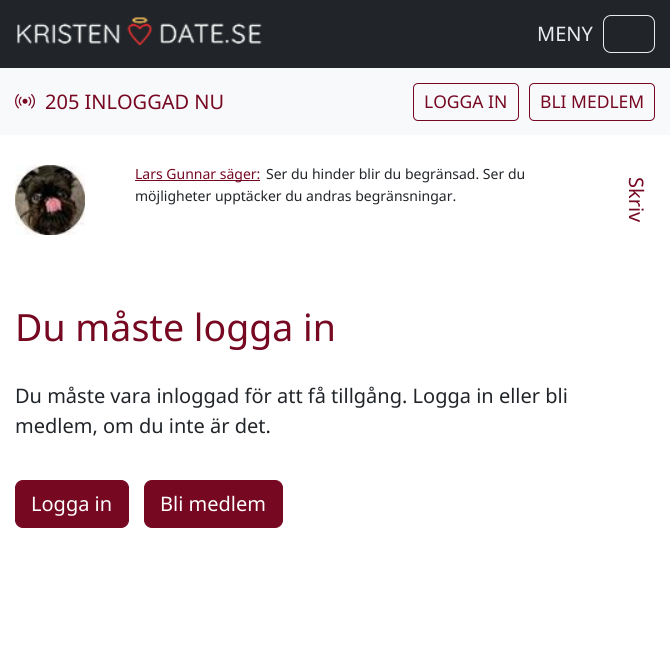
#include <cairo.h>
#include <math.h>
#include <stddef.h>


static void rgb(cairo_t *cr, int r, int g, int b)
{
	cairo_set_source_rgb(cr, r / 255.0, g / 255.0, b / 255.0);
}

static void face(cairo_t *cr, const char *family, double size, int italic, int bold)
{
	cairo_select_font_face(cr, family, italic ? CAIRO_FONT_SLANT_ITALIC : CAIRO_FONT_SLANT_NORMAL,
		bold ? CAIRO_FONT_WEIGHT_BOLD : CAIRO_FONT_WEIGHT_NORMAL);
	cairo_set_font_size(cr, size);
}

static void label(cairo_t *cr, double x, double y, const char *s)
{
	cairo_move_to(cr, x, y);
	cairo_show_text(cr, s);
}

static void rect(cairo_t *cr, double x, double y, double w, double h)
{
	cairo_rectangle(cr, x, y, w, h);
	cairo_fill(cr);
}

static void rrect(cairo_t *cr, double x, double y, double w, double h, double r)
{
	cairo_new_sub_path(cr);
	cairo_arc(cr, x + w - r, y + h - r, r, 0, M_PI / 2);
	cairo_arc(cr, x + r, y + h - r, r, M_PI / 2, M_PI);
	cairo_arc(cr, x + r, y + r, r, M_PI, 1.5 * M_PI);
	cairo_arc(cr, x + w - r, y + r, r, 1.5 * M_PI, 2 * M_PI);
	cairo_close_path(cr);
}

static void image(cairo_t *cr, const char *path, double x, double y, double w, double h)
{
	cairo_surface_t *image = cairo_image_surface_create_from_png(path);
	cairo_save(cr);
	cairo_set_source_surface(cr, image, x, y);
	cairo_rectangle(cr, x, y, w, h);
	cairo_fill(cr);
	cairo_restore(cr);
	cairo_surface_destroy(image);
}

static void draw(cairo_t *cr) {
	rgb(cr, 255, 255, 255);
	cairo_paint(cr);
	rgb(cr, 33, 37, 41);
	rect(cr, 0, 0, 670, 68);
	image(cr, "image0.png", 17, 17, 245, 29);
	face(cr, "Noto Sans", 20, 0, 0);
	rgb(cr, 233, 236, 239);
	label(cr, 537, 41, "MENY");
	rrect(cr, 603.5, 15.5, 51, 37, 7.5);
	cairo_set_line_width(cr, 1);
	cairo_stroke(cr);
	rgb(cr, 248, 249, 250);
	rect(cr, 0, 68, 670, 67);
	image(cr, "image1.png", 15, 94, 20, 15);
	rgb(cr, 118, 8, 34);
	label(cr, 45, 109, "205 INLOGGAD NU");
	rrect(cr, 413.5, 83.5, 105, 37, 4.5);
	cairo_stroke(cr);
	face(cr, "Noto Sans", 17.5, 0, 0);
	label(cr, 424, 108, "LOGGA IN");
	rrect(cr, 529.5, 83.5, 125, 37, 4.5);
	cairo_stroke(cr);
	label(cr, 540, 108, "BLI MEDLEM");
	image(cr, "image2.png", 15, 165, 70, 70);
	rect(cr, 135, 180, 125, 1);
	face(cr, "Noto Sans", 14, 0, 0);
	label(cr, 135, 179, "Lars Gunnar säger:");
	rgb(cr, 33, 37, 41);
	label(cr, 266, 179, "Ser du hinder blir du begränsad. Ser du");
	label(cr, 135, 201, "möjligheter upptäcker du andras begränsningar.");
	face(cr, "Noto Sans", 20, 0, 0);
	rgb(cr, 118, 8, 34);
	cairo_save(cr);
	cairo_translate(cr, 629, 177);
	cairo_rotate(cr, 90 * M_PI / 180);
	label(cr, 0, 0, "Skriv");
	cairo_restore(cr);
	face(cr, "Noto Sans", 37.5, 0, 0);
	label(cr, 15, 341, "Du måste logga in");
	face(cr, "Noto Sans", 20, 0, 0);
	rgb(cr, 33, 37, 41);
	label(cr, 15, 403, "Du måste vara inloggad för att få tillgång. Logga in eller bli");
	label(cr, 15, 433, "medlem, om du inte är det.");
	rgb(cr, 118, 8, 34);
	rrect(cr, 15.5, 480.5, 113, 47, 7.5);
	cairo_fill_preserve(cr);
	cairo_stroke(cr);
	rgb(cr, 255, 255, 255);
	label(cr, 31, 511, "Logga in");
	rgb(cr, 118, 8, 34);
	rrect(cr, 144.5, 480.5, 138, 47, 7.5);
	cairo_fill_preserve(cr);
	cairo_stroke(cr);
	rgb(cr, 255, 255, 255);
	label(cr, 160, 511, "Bli medlem");
}

int main(void) {
	cairo_surface_t *surface = cairo_image_surface_create(CAIRO_FORMAT_RGB24, 670, 645);
	cairo_t *cr = cairo_create(surface);
	cairo_font_options_t *options = cairo_font_options_create();
	cairo_font_options_set_hint_metrics(options, CAIRO_HINT_METRICS_OFF);
	cairo_font_options_set_hint_style(options, CAIRO_HINT_STYLE_NONE);
	cairo_set_font_options(cr, options);
	cairo_set_miter_limit(cr, 4);
	draw(cr);
	cairo_surface_write_to_png(surface, "render.png");
	cairo_font_options_destroy(options);
	cairo_destroy(cr);
	cairo_surface_destroy(surface);
	return 0;
}
